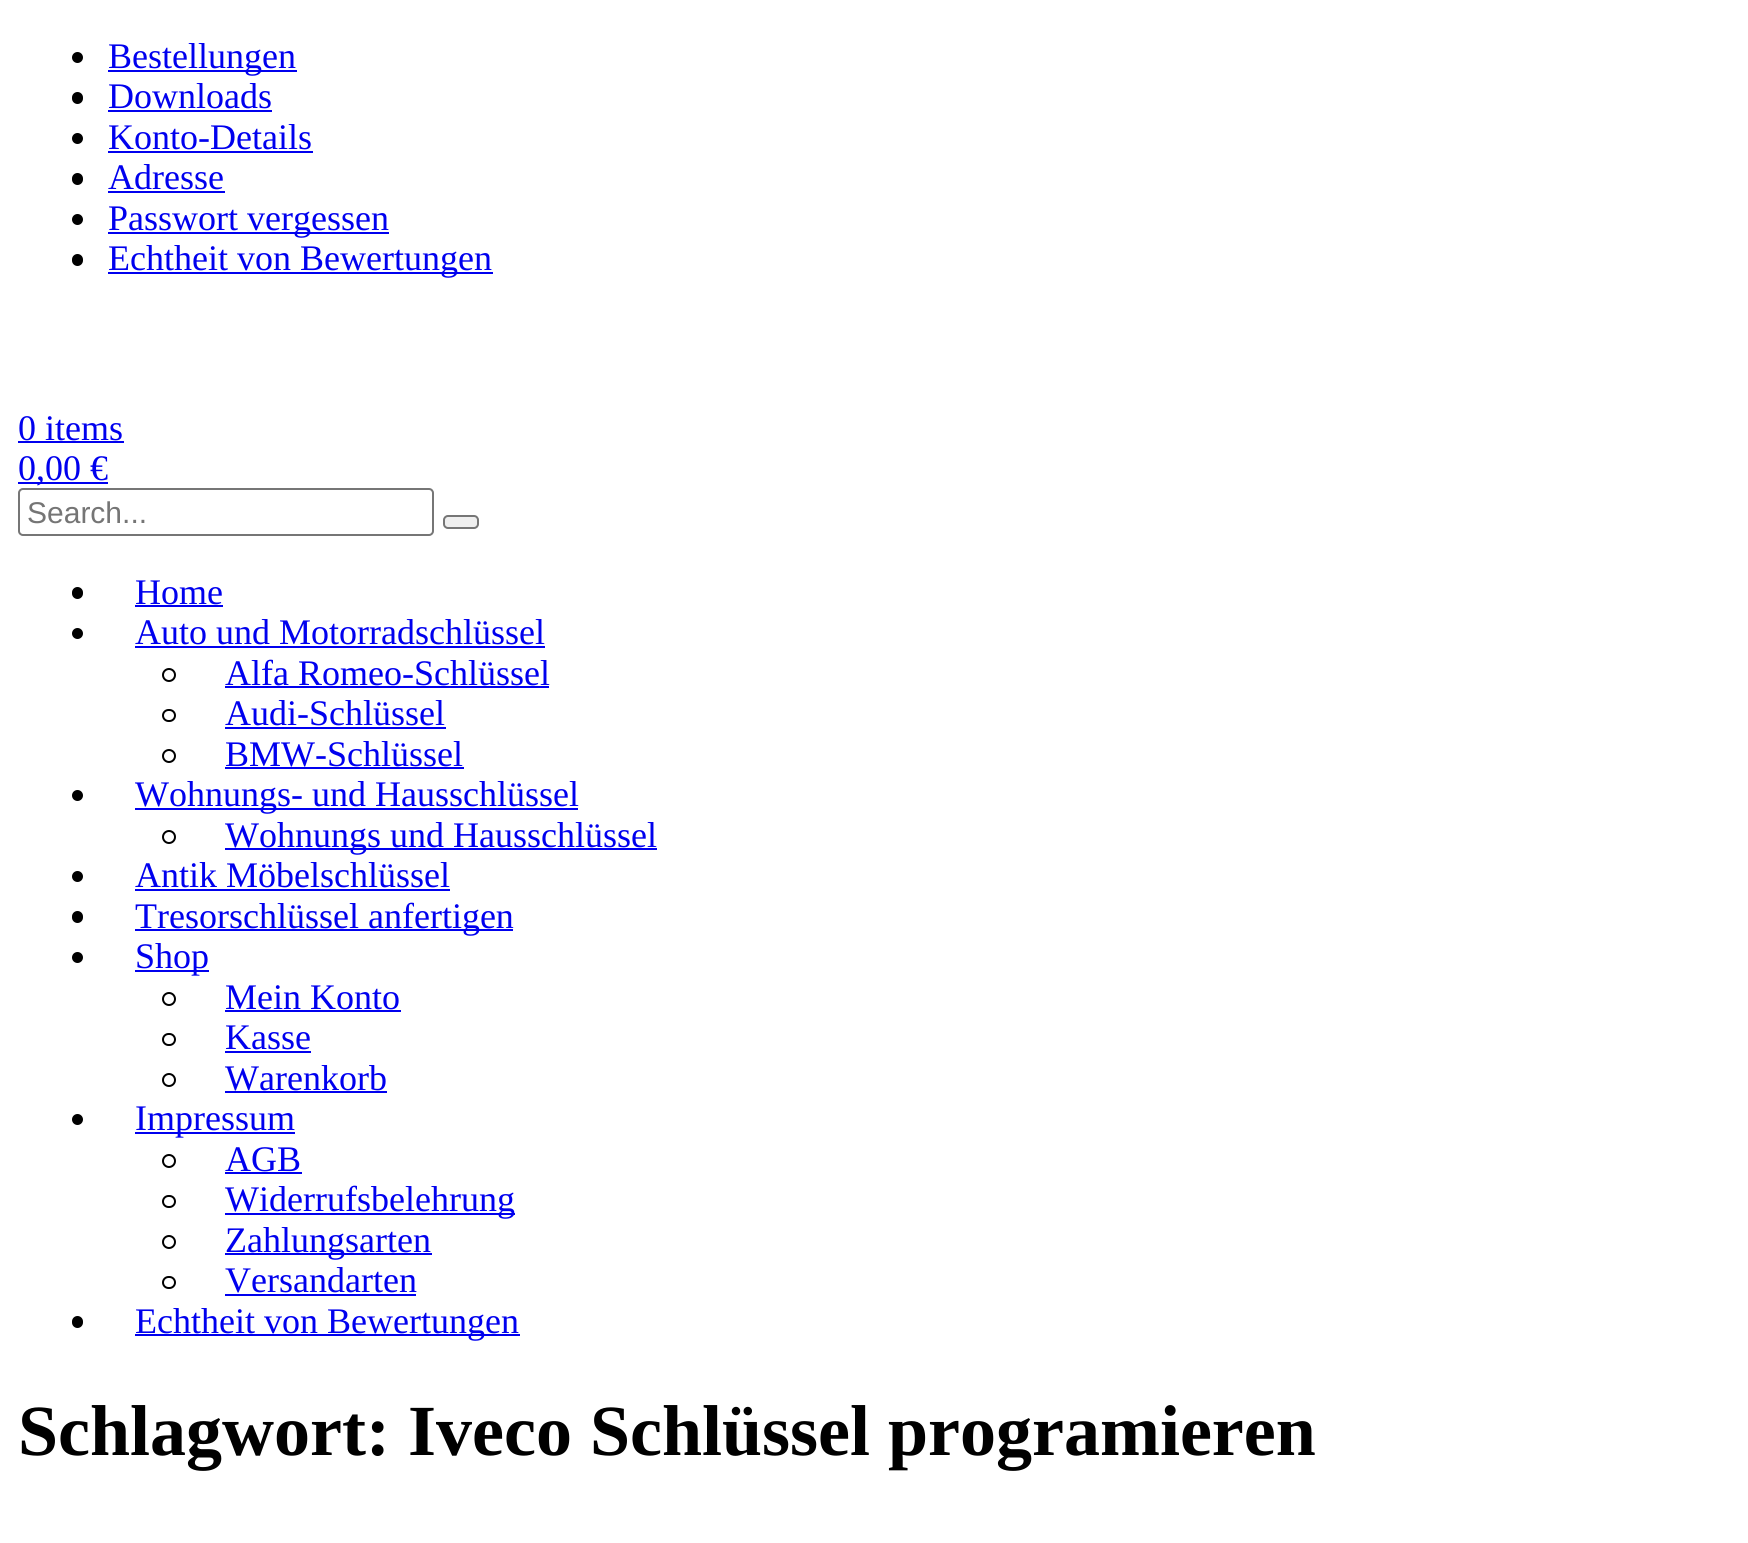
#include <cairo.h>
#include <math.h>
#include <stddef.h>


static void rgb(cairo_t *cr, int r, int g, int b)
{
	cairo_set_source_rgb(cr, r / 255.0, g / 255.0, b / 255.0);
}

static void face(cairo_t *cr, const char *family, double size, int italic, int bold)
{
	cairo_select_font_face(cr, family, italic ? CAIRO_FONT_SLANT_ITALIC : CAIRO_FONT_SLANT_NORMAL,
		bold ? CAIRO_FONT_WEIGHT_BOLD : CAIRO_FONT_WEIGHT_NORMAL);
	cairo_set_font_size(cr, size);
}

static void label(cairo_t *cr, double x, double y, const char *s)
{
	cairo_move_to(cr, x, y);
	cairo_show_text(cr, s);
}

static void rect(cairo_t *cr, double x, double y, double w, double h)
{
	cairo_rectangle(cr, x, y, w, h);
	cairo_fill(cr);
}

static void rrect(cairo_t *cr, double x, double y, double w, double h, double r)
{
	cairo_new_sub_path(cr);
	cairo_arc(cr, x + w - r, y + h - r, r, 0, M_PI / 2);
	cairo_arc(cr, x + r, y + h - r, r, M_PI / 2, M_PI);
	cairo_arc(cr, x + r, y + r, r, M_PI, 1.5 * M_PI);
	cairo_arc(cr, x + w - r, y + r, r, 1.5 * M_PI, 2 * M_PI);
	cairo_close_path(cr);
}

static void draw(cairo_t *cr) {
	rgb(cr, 255, 255, 255);
	cairo_paint(cr);
	rgb(cr, 0, 0, 0);
	cairo_arc(cr, 77.5, 57.5, 5.5, 0, 2 * M_PI);
	cairo_fill(cr);
	rgb(cr, 0, 0, 238);
	rect(cr, 108, 70, 189, 2);
	face(cr, "Liberation Serif", 36, 0, 0);
	label(cr, 108, 68, "Bestellungen");
	rgb(cr, 0, 0, 0);
	rrect(cr, 72, 92, 11, 12, 5.5);
	cairo_fill(cr);
	rgb(cr, 0, 0, 238);
	label(cr, 108, 108, "Downloads");
	rect(cr, 108, 110, 164, 2);
	rgb(cr, 0, 0, 0);
	cairo_new_path(cr);
	cairo_arc(cr, 77.5, 138.5, 5.5, 0, 2 * M_PI);
	cairo_fill(cr);
	rgb(cr, 0, 0, 238);
	label(cr, 108, 149, "Konto-Details");
	rect(cr, 108, 151, 205, 2);
	rgb(cr, 0, 0, 0);
	rrect(cr, 72, 173, 11, 12, 5.5);
	cairo_fill(cr);
	rgb(cr, 0, 0, 238);
	label(cr, 108, 189, "Adresse");
	rect(cr, 108, 191, 117, 2);
	rgb(cr, 0, 0, 0);
	cairo_new_path(cr);
	cairo_arc(cr, 77.5, 219.5, 5.5, 0, 2 * M_PI);
	cairo_fill(cr);
	rgb(cr, 0, 0, 238);
	rect(cr, 108, 232, 281, 2);
	label(cr, 108, 230, "Passwort vergessen");
	rgb(cr, 0, 0, 0);
	rrect(cr, 72, 254, 11, 12, 5.5);
	cairo_fill(cr);
	rgb(cr, 0, 0, 238);
	rect(cr, 108, 272, 385, 2);
	label(cr, 108, 270, "Echtheit von Bewertungen");
	label(cr, 18, 440, "0 items");
	rect(cr, 18, 441, 106, 2);
	rect(cr, 18, 482, 90, 2);
	label(cr, 18, 480, "0,00 €");
	rrect(cr, 19, 489, 414, 46, 4);
	rgb(cr, 118, 118, 118);
	cairo_stroke(cr);
	face(cr, "Liberation Sans", 30, 0, 0);
	rgb(cr, 117, 117, 117);
	label(cr, 27, 523, "Search...");
	rgb(cr, 239, 239, 239);
	rrect(cr, 444, 516, 34, 12, 4);
	cairo_fill_preserve(cr);
	rgb(cr, 118, 118, 118);
	cairo_stroke(cr);
	rgb(cr, 0, 0, 0);
	rrect(cr, 72, 587, 11, 12, 5.5);
	cairo_fill(cr);
	face(cr, "Liberation Serif", 36, 0, 0);
	rgb(cr, 0, 0, 238);
	label(cr, 135, 604, "Home");
	rect(cr, 135, 605, 88, 2);
	rgb(cr, 0, 0, 0);
	cairo_new_path(cr);
	cairo_arc(cr, 77.5, 633.5, 5.5, 0, 2 * M_PI);
	cairo_fill(cr);
	rgb(cr, 0, 0, 238);
	label(cr, 135, 644, "Auto und Motorradschlüssel");
	rect(cr, 135, 646, 410, 2);
	cairo_new_path(cr);
	cairo_arc(cr, 169, 675, 6, 0, 2 * M_PI);
	rgb(cr, 0, 0, 0);
	cairo_stroke(cr);
	rgb(cr, 0, 0, 238);
	label(cr, 225, 685, "Alfa Romeo-Schlüssel");
	rect(cr, 225, 686, 324, 2);
	rrect(cr, 163, 710, 12, 11, 5.5);
	rgb(cr, 0, 0, 0);
	cairo_stroke(cr);
	rgb(cr, 0, 0, 238);
	label(cr, 225, 725, "Audi-Schlüssel");
	rect(cr, 225, 727, 221, 2);
	cairo_new_path(cr);
	cairo_arc(cr, 169, 756, 6, 0, 2 * M_PI);
	rgb(cr, 0, 0, 0);
	cairo_stroke(cr);
	rgb(cr, 0, 0, 238);
	label(cr, 225, 766, "BMW-Schlüssel");
	rect(cr, 225, 767, 239, 2);
	rgb(cr, 0, 0, 0);
	cairo_new_path(cr);
	cairo_arc(cr, 77.5, 795.5, 5.5, 0, 2 * M_PI);
	cairo_fill(cr);
	rgb(cr, 0, 0, 238);
	rect(cr, 135, 808, 443, 2);
	label(cr, 135, 806, "Wohnungs- und Hausschlüssel");
	cairo_new_path(cr);
	cairo_arc(cr, 169, 837, 6, 0, 2 * M_PI);
	rgb(cr, 0, 0, 0);
	cairo_stroke(cr);
	rgb(cr, 0, 0, 238);
	rect(cr, 225, 848, 432, 2);
	label(cr, 225, 847, "Wohnungs und Hausschlüssel");
	rgb(cr, 0, 0, 0);
	cairo_new_path(cr);
	cairo_arc(cr, 77.5, 876.5, 5.5, 0, 2 * M_PI);
	cairo_fill(cr);
	rgb(cr, 0, 0, 238);
	label(cr, 135, 887, "Antik Möbelschlüssel");
	rect(cr, 135, 889, 315, 2);
	rgb(cr, 0, 0, 0);
	rrect(cr, 72, 911, 11, 12, 5.5);
	cairo_fill(cr);
	rgb(cr, 0, 0, 238);
	rect(cr, 135, 929, 378, 2);
	label(cr, 135, 928, "Tresorschlüssel anfertigen");
	rgb(cr, 0, 0, 0);
	cairo_new_path(cr);
	cairo_arc(cr, 77.5, 957.5, 5.5, 0, 2 * M_PI);
	cairo_fill(cr);
	rgb(cr, 0, 0, 238);
	rect(cr, 135, 970, 74, 2);
	label(cr, 135, 968, "Shop");
	cairo_new_path(cr);
	cairo_arc(cr, 169, 999, 6, 0, 2 * M_PI);
	rgb(cr, 0, 0, 0);
	cairo_stroke(cr);
	rgb(cr, 0, 0, 238);
	label(cr, 225, 1009, "Mein Konto");
	rect(cr, 225, 1010, 176, 2);
	rrect(cr, 163, 1034, 12, 11, 5.5);
	rgb(cr, 0, 0, 0);
	cairo_stroke(cr);
	rgb(cr, 0, 0, 238);
	label(cr, 225, 1049, "Kasse");
	rect(cr, 225, 1051, 86, 2);
	cairo_new_path(cr);
	cairo_arc(cr, 169, 1080, 6, 0, 2 * M_PI);
	rgb(cr, 0, 0, 0);
	cairo_stroke(cr);
	rgb(cr, 0, 0, 238);
	label(cr, 225, 1090, "Warenkorb");
	rect(cr, 225, 1091, 162, 2);
	rgb(cr, 0, 0, 0);
	cairo_new_path(cr);
	cairo_arc(cr, 77.5, 1119.5, 5.5, 0, 2 * M_PI);
	cairo_fill(cr);
	rgb(cr, 0, 0, 238);
	rect(cr, 135, 1132, 160, 2);
	label(cr, 135, 1130, "Impressum");
	cairo_new_path(cr);
	cairo_arc(cr, 169, 1161, 6, 0, 2 * M_PI);
	rgb(cr, 0, 0, 0);
	cairo_stroke(cr);
	rgb(cr, 0, 0, 238);
	label(cr, 225, 1171, "AGB");
	rect(cr, 225, 1172, 77, 2);
	rrect(cr, 163, 1196, 12, 11, 5.5);
	rgb(cr, 0, 0, 0);
	cairo_stroke(cr);
	rgb(cr, 0, 0, 238);
	rect(cr, 225, 1213, 290, 2);
	label(cr, 225, 1211, "Widerrufsbelehrung");
	cairo_new_path(cr);
	cairo_arc(cr, 169, 1242, 6, 0, 2 * M_PI);
	rgb(cr, 0, 0, 0);
	cairo_stroke(cr);
	rgb(cr, 0, 0, 238);
	rect(cr, 225, 1253, 207, 2);
	label(cr, 225, 1252, "Zahlungsarten");
	rrect(cr, 163, 1277, 12, 11, 5.5);
	rgb(cr, 0, 0, 0);
	cairo_stroke(cr);
	rgb(cr, 0, 0, 238);
	label(cr, 225, 1292, "Versandarten");
	rect(cr, 225, 1294, 191, 2);
	rgb(cr, 0, 0, 0);
	rrect(cr, 72, 1316, 11, 12, 5.5);
	cairo_fill(cr);
	rgb(cr, 0, 0, 238);
	rect(cr, 135, 1334, 385, 2);
	label(cr, 135, 1333, "Echtheit von Bewertungen");
	face(cr, "Liberation Serif", 72, 0, 1);
	rgb(cr, 0, 0, 0);
	label(cr, 18, 1455, "Schlagwort: Iveco Schlüssel programieren");
}

int main(void) {
	cairo_surface_t *surface = cairo_image_surface_create(CAIRO_FORMAT_RGB24, 1748, 1543);
	cairo_t *cr = cairo_create(surface);
	cairo_font_options_t *options = cairo_font_options_create();
	cairo_font_options_set_hint_metrics(options, CAIRO_HINT_METRICS_OFF);
	cairo_font_options_set_hint_style(options, CAIRO_HINT_STYLE_NONE);
	cairo_set_font_options(cr, options);
	cairo_set_miter_limit(cr, 4);
	draw(cr);
	cairo_surface_write_to_png(surface, "render.png");
	cairo_font_options_destroy(options);
	cairo_destroy(cr);
	cairo_surface_destroy(surface);
	return 0;
}
